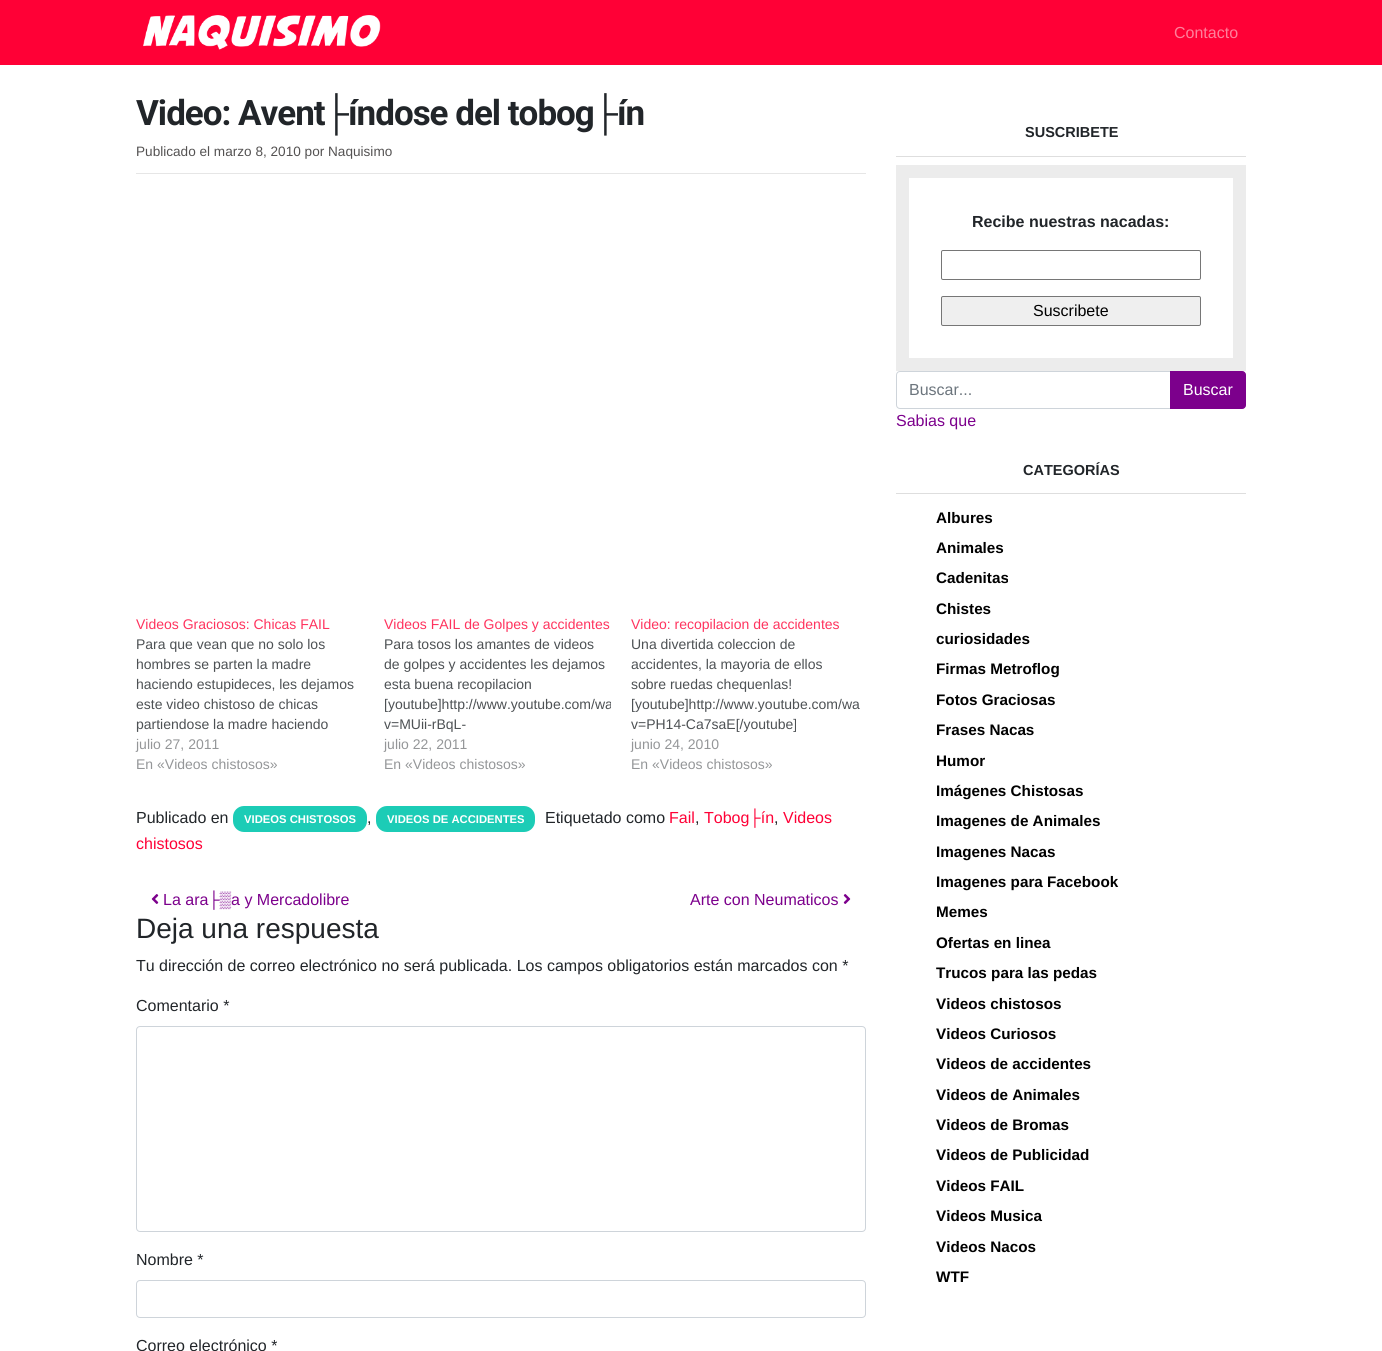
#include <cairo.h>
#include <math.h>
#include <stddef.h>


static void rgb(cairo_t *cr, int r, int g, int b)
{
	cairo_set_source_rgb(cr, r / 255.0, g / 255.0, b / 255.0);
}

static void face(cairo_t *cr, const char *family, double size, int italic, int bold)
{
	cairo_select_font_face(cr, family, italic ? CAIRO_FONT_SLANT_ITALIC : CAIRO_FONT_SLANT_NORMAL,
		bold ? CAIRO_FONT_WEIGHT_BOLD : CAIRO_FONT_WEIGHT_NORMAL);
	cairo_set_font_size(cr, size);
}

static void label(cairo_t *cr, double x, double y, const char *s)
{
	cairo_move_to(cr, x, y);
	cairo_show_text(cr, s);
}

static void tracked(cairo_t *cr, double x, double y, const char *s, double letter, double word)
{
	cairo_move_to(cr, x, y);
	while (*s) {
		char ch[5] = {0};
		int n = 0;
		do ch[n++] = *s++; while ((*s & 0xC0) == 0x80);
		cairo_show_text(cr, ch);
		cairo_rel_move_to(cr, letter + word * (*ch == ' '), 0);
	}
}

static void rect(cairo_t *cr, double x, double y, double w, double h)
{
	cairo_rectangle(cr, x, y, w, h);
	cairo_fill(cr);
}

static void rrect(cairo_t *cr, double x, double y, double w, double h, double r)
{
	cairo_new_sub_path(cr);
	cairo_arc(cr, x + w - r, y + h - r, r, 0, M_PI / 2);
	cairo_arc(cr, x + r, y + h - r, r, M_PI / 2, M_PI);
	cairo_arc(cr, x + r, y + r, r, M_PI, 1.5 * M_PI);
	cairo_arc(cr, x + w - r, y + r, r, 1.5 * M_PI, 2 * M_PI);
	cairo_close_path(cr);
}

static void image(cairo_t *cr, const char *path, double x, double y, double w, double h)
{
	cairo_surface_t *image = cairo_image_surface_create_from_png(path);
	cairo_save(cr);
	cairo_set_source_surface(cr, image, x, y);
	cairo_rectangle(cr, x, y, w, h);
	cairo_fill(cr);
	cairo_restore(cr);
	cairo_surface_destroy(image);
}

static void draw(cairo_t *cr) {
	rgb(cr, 255, 255, 255);
	cairo_paint(cr);
	rgb(cr, 255, 0, 54);
	rect(cr, 0, 0, 1382, 65);
	image(cr, "image0.png", 143, 15, 238, 35);
	face(cr, "Liberation Sans", 16, 0, 0);
	rgb(cr, 255, 128, 155);
	label(cr, 1174, 38, "Contacto");
	rgb(cr, 230, 230, 230);
	rect(cr, 136, 173, 730, 1);
	face(cr, "Roboto", 35, 0, 1);
	rgb(cr, 33, 37, 41);
	tracked(cr, 136, 125, "Video: Avent", -1, 0);
	face(cr, "Liberation Sans", 35, 0, 1);
	tracked(cr, 324, 125, "├", -1, 0);
	face(cr, "Roboto", 35, 0, 1);
	tracked(cr, 348, 125, "índose del tobog", -1, 0);
	face(cr, "Liberation Sans", 35, 0, 1);
	tracked(cr, 593, 125, "├", -1, 0);
	face(cr, "Roboto", 35, 0, 1);
	tracked(cr, 617, 125, "ín", -1, 0);
	face(cr, "Liberation Sans", 13.6, 0, 0);
	rgb(cr, 84, 82, 82);
	label(cr, 136, 156, "Publicado el marzo 8, 2010 por Naquisimo");
	face(cr, "Liberation Sans", 14, 0, 0);
	rgb(cr, 255, 51, 94);
	label(cr, 136, 629, "Videos Graciosos: Chicas FAIL");
	rgb(cr, 77, 81, 84);
	label(cr, 136, 649, "Para que vean que no solo los");
	label(cr, 136, 669, "hombres se parten la madre");
	label(cr, 136, 689, "haciendo estupideces, les dejamos");
	label(cr, 136, 709, "este video chistoso de chicas");
	label(cr, 136, 729, "partiendose la madre haciendo");
	rgb(cr, 148, 150, 152);
	label(cr, 136, 749, "julio 27, 2011");
	label(cr, 136, 769, "En «Videos chistosos»");
	rgb(cr, 255, 51, 94);
	label(cr, 384, 629, "Videos FAIL de Golpes y accidentes");
	rgb(cr, 77, 81, 84);
	label(cr, 384, 649, "Para tosos los amantes de videos");
	label(cr, 384, 669, "de golpes y accidentes les dejamos");
	label(cr, 384, 689, "esta buena recopilacion");
	cairo_save(cr);
	cairo_rectangle(cr, 384, 634, 227, 100);
	cairo_clip(cr);
	label(cr, 384, 709, "[youtube]http://www.youtube.com/wa");
	cairo_restore(cr);
	label(cr, 384, 729, "v=MUii-rBqL-");
	rgb(cr, 148, 150, 152);
	label(cr, 384, 749, "julio 22, 2011");
	label(cr, 384, 769, "En «Videos chistosos»");
	rgb(cr, 255, 51, 94);
	label(cr, 631, 629, "Video: recopilacion de accidentes");
	rgb(cr, 77, 81, 84);
	label(cr, 631, 649, "Una divertida coleccion de");
	label(cr, 631, 669, "accidentes, la mayoria de ellos");
	label(cr, 631, 689, "sobre ruedas chequenlas!");
	label(cr, 631, 709, "[youtube]http://www.youtube.com/wa");
	label(cr, 631, 729, "v=PH14-Ca7saE[/youtube]");
	rgb(cr, 148, 150, 152);
	label(cr, 631, 749, "junio 24, 2010");
	label(cr, 631, 769, "En «Videos chistosos»");
	face(cr, "Liberation Sans", 16, 0, 0);
	rgb(cr, 33, 37, 41);
	label(cr, 136, 823, "Publicado en");
	rgb(cr, 28, 204, 182);
	rrect(cr, 233, 806, 134, 26, 11);
	cairo_fill(cr);
	face(cr, "Liberation Sans", 11.25, 0, 1);
	rgb(cr, 255, 255, 255);
	label(cr, 244, 823, "VIDEOS CHISTOSOS");
	face(cr, "Liberation Sans", 16, 0, 0);
	rgb(cr, 33, 37, 41);
	label(cr, 367, 823, ",");
	rgb(cr, 28, 204, 182);
	rrect(cr, 376, 806, 159, 26, 11);
	cairo_fill(cr);
	face(cr, "Liberation Sans", 11.25, 0, 1);
	rgb(cr, 255, 255, 255);
	label(cr, 387, 823, "VIDEOS DE ACCIDENTES");
	face(cr, "Liberation Sans", 16, 0, 0);
	rgb(cr, 33, 37, 41);
	label(cr, 545, 823, "Etiquetado como");
	rgb(cr, 255, 0, 54);
	label(cr, 669, 823, "Fail");
	rgb(cr, 33, 37, 41);
	label(cr, 695, 823, ",");
	rgb(cr, 255, 0, 54);
	label(cr, 704, 823, "Tobog├ín");
	rgb(cr, 33, 37, 41);
	label(cr, 774, 823, ",");
	rgb(cr, 255, 0, 54);
	label(cr, 783, 823, "Videos");
	label(cr, 136, 849, "chistosos");
	image(cr, "image1.png", 151, 894, 8, 10);
	rgb(cr, 124, 0, 140);
	label(cr, 163, 905, "La ara├▒a y Mercadolibre");
	label(cr, 690, 905, "Arte con Neumaticos");
	image(cr, "image2.png", 843, 894, 8, 10);
	face(cr, "Liberation Sans", 28, 0, 0);
	rgb(cr, 33, 37, 41);
	label(cr, 136, 938, "Deja una respuesta");
	face(cr, "Liberation Sans", 16, 0, 0);
	label(cr, 136, 971, "Tu dirección de correo electrónico no será publicada. Los campos obligatorios están marcados con *");
	label(cr, 136, 1011, "Comentario *");
	rrect(cr, 136.5, 1026.5, 729, 205, 3.5);
	rgb(cr, 206, 212, 218);
	cairo_set_line_width(cr, 1);
	cairo_stroke(cr);
	rgb(cr, 33, 37, 41);
	label(cr, 136, 1265, "Nombre *");
	rrect(cr, 136.5, 1280.5, 729, 37, 3.5);
	rgb(cr, 206, 212, 218);
	cairo_stroke(cr);
	rgb(cr, 33, 37, 41);
	label(cr, 136, 1351, "Correo electrónico *");
	rgb(cr, 222, 222, 222);
	rect(cr, 896, 156, 350, 1);
	face(cr, "Liberation Sans", 14.5, 0, 1);
	rgb(cr, 33, 37, 41);
	label(cr, 1025, 137, "SUSCRIBETE");
	cairo_rectangle(cr, 902.5, 171.5, 337, 193);
	rgb(cr, 236, 236, 236);
	cairo_set_line_width(cr, 13);
	cairo_stroke(cr);
	face(cr, "Liberation Sans", 16, 0, 1);
	rgb(cr, 33, 37, 41);
	label(cr, 972, 227, "Recibe nuestras nacadas:");
	rrect(cr, 941.5, 250.5, 259, 29, 1.5);
	rgb(cr, 118, 118, 118);
	cairo_set_line_width(cr, 1);
	cairo_stroke(cr);
	rgb(cr, 239, 239, 239);
	rrect(cr, 941.5, 296.5, 259, 29, 1.5);
	cairo_fill_preserve(cr);
	rgb(cr, 118, 118, 118);
	cairo_stroke(cr);
	face(cr, "Liberation Sans", 16, 0, 0);
	rgb(cr, 0, 0, 0);
	label(cr, 1033, 316, "Suscribete");
	cairo_new_path(cr);
	cairo_move_to(cr, 900, 371.5);
	cairo_line_to(cr, 1170.5, 371.5);
	cairo_line_to(cr, 1170.5, 408.5);
	cairo_line_to(cr, 900, 408.5);
	cairo_curve_to(cr, 898, 408.5, 896.5, 407, 896.5, 405);
	cairo_line_to(cr, 896.5, 375);
	cairo_curve_to(cr, 896.5, 373, 898, 371.5, 900, 371.5);
	cairo_close_path(cr);
	rgb(cr, 206, 212, 218);
	cairo_stroke(cr);
	rgb(cr, 108, 117, 125);
	label(cr, 909, 395, "Buscar...");
	rgb(cr, 124, 0, 140);
	cairo_new_path(cr);
	cairo_move_to(cr, 1170.5, 371.5);
	cairo_line_to(cr, 1242, 371.5);
	cairo_curve_to(cr, 1244, 371.5, 1245.5, 373, 1245.5, 375);
	cairo_line_to(cr, 1245.5, 405);
	cairo_curve_to(cr, 1245.5, 407, 1244, 408.5, 1242, 408.5);
	cairo_line_to(cr, 1170.5, 408.5);
	cairo_close_path(cr);
	cairo_fill_preserve(cr);
	cairo_stroke(cr);
	rgb(cr, 255, 255, 255);
	label(cr, 1183, 395, "Buscar");
	rgb(cr, 124, 0, 140);
	label(cr, 896, 426, "Sabias que");
	rgb(cr, 222, 222, 222);
	rect(cr, 896, 493, 350, 1);
	face(cr, "Liberation Sans", 14.5, 0, 1);
	rgb(cr, 33, 37, 41);
	label(cr, 1023, 475, "CATEGORÍAS");
	face(cr, "Liberation Sans", 15.25, 0, 1);
	rgb(cr, 0, 0, 0);
	label(cr, 936, 523, "Albures");
	label(cr, 936, 553, "Animales");
	label(cr, 936, 583, "Cadenitas");
	label(cr, 936, 614, "Chistes");
	label(cr, 936, 644, "curiosidades");
	label(cr, 936, 674, "Firmas Metroflog");
	label(cr, 936, 705, "Fotos Graciosas");
	label(cr, 936, 735, "Frases Nacas");
	label(cr, 936, 766, "Humor");
	label(cr, 936, 796, "Imágenes Chistosas");
	label(cr, 936, 826, "Imagenes de Animales");
	label(cr, 936, 857, "Imagenes Nacas");
	label(cr, 936, 887, "Imagenes para Facebook");
	label(cr, 936, 917, "Memes");
	label(cr, 936, 948, "Ofertas en linea");
	label(cr, 936, 978, "Trucos para las pedas");
	label(cr, 936, 1009, "Videos chistosos");
	label(cr, 936, 1039, "Videos Curiosos");
	label(cr, 936, 1069, "Videos de accidentes");
	label(cr, 936, 1100, "Videos de Animales");
	label(cr, 936, 1130, "Videos de Bromas");
	label(cr, 936, 1160, "Videos de Publicidad");
	label(cr, 936, 1191, "Videos FAIL");
	label(cr, 936, 1221, "Videos Musica");
	label(cr, 936, 1252, "Videos Nacos");
	label(cr, 936, 1282, "WTF");
}

int main(void) {
	cairo_surface_t *surface = cairo_image_surface_create(CAIRO_FORMAT_RGB24, 1382, 1351);
	cairo_t *cr = cairo_create(surface);
	cairo_font_options_t *options = cairo_font_options_create();
	cairo_font_options_set_hint_metrics(options, CAIRO_HINT_METRICS_OFF);
	cairo_font_options_set_hint_style(options, CAIRO_HINT_STYLE_NONE);
	cairo_set_font_options(cr, options);
	cairo_set_miter_limit(cr, 4);
	draw(cr);
	cairo_surface_write_to_png(surface, "render.png");
	cairo_font_options_destroy(options);
	cairo_destroy(cr);
	cairo_surface_destroy(surface);
	return 0;
}
